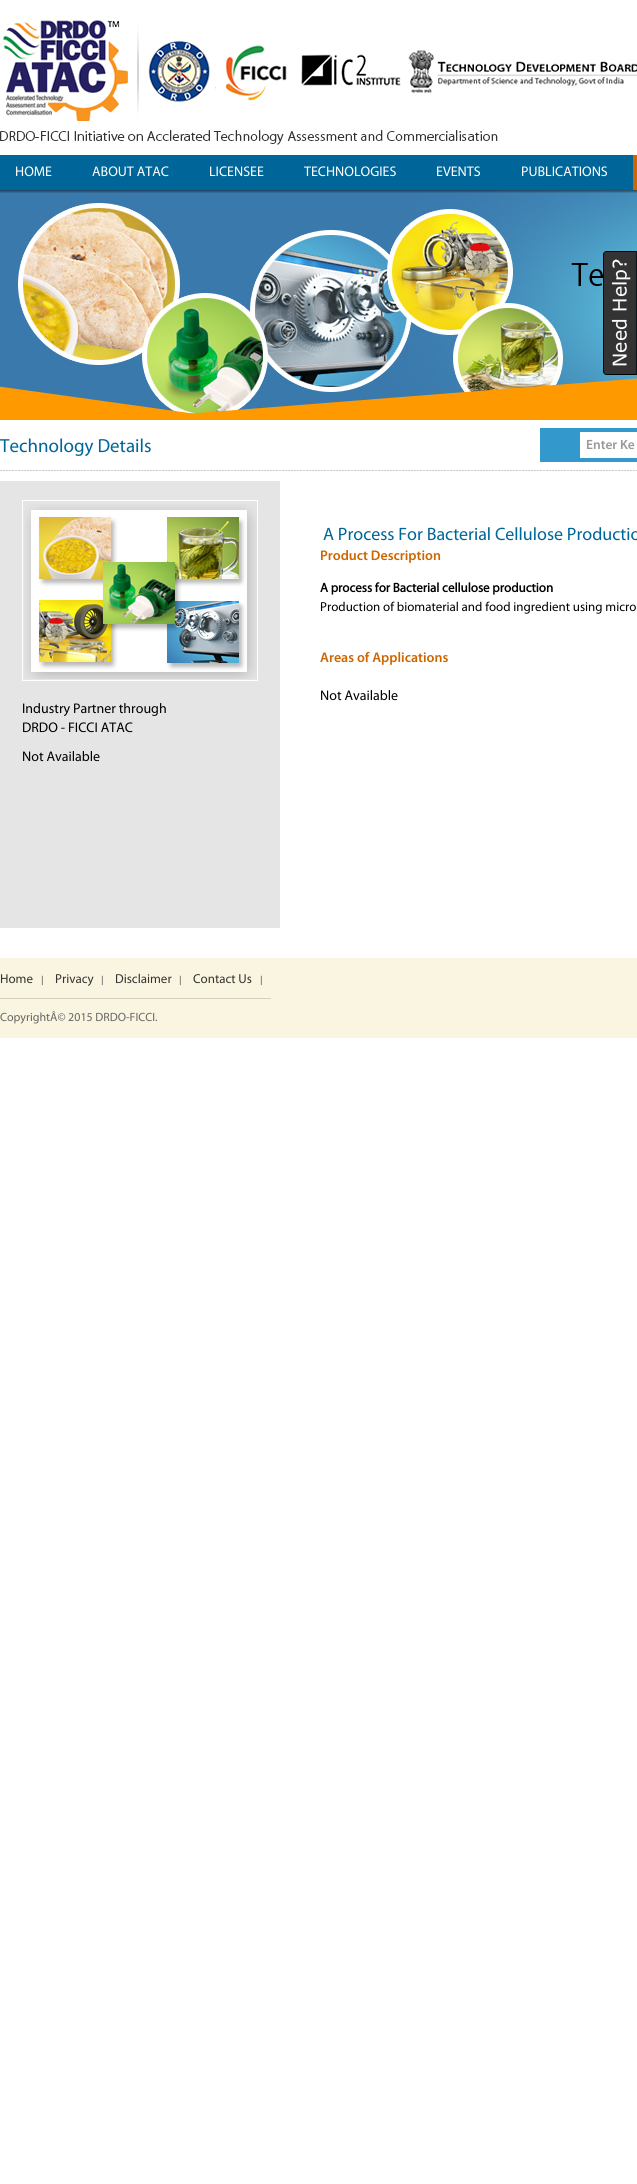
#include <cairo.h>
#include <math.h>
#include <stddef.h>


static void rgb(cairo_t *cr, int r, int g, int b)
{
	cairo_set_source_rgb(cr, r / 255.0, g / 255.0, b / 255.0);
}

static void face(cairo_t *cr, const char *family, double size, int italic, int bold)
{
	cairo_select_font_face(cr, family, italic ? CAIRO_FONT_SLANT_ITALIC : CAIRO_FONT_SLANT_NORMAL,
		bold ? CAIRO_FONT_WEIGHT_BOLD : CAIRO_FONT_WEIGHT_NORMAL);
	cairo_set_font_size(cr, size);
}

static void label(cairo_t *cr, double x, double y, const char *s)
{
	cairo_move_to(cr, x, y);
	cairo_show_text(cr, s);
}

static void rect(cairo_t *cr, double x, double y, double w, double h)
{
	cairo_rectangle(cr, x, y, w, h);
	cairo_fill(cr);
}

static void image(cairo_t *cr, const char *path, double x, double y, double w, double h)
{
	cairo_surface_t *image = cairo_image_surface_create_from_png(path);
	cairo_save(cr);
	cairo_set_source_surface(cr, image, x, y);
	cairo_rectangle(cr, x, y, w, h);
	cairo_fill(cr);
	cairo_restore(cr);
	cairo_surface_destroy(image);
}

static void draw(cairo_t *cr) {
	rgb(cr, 255, 255, 255);
	cairo_paint(cr);
	image(cr, "image0.png", 3, 20, 634, 101);
	image(cr, "image1.png", 0, 130, 498, 15);
	rgb(cr, 0, 102, 153);
	rect(cr, 0, 155, 633, 35);
	face(cr, "Myriad", 14, 0, 0);
	rgb(cr, 255, 255, 255);
	label(cr, 15, 176, "HOME");
	label(cr, 92, 176, "ABOUT ATAC");
	label(cr, 209, 176, "LICENSEE");
	label(cr, 304, 176, "TECHNOLOGIES");
	label(cr, 436, 176, "EVENTS");
	label(cr, 521, 176, "PUBLICATIONS");
	rgb(cr, 204, 102, 0);
	rect(cr, 633, 155, 4, 35);
	image(cr, "image2.png", 0, 190, 637, 230);
	image(cr, "image3.png", 603, 251, 34, 124);
	face(cr, "Myriad", 19, 0, 0);
	rgb(cr, 0, 102, 153);
	label(cr, 0, 452, "Technology Details");
	rgb(cr, 51, 153, 204);
	rect(cr, 540, 428, 97, 34);
	rgb(cr, 255, 255, 255);
	rect(cr, 580, 432, 57, 26);
	face(cr, "Myriad SemiBold", 13.5, 0, 0);
	rgb(cr, 153, 153, 153);
	label(cr, 586, 449, "Enter Ke");
	image(cr, "image4.png", 0, 470, 637, 1);
	face(cr, "Myriad", 18, 0, 0);
	rgb(cr, 0, 102, 153);
	label(cr, 323, 540, "A Process For Bacterial Cellulose Productio");
	face(cr, "Myriad SemiBold", 14, 0, 0);
	rgb(cr, 204, 102, 0);
	label(cr, 320, 560, "Product Description");
	face(cr, "Myriad", 13, 0, 1);
	rgb(cr, 0, 0, 0);
	label(cr, 320, 592, "A process for Bacterial cellulose production");
	face(cr, "Myriad", 13, 0, 0);
	label(cr, 320, 611, "Production of biomaterial and food ingredient using micro");
	face(cr, "Myriad SemiBold", 14, 0, 0);
	rgb(cr, 204, 102, 0);
	label(cr, 320, 662, "Areas of Applications");
	face(cr, "Myriad", 14, 0, 0);
	rgb(cr, 0, 0, 0);
	label(cr, 320, 700, "Not Available");
	rgb(cr, 229, 229, 229);
	rect(cr, 0, 481, 280, 447);
	rgb(cr, 255, 255, 255);
	rect(cr, 22, 500, 236, 181);
	rgb(cr, 229, 229, 229);
	rect(cr, 23, 501, 234, 179);
	image(cr, "image5.png", 24, 504, 233, 175);
	rgb(cr, 0, 0, 0);
	label(cr, 22, 713, "Industry Partner through");
	label(cr, 22, 732, "DRDO - FICCI ATAC");
	label(cr, 22, 761, "Not Available");
	rgb(cr, 250, 245, 224);
	rect(cr, 0, 958, 637, 80);
	face(cr, "Myriad", 13, 0, 0);
	rgb(cr, 51, 51, 51);
	label(cr, 0, 983, "Home");
	face(cr, "Liberation Sans", 10, 0, 0);
	rgb(cr, 102, 102, 102);
	label(cr, 41, 983, "|");
	face(cr, "Myriad", 13, 0, 0);
	rgb(cr, 51, 51, 51);
	label(cr, 55, 983, "Privacy");
	face(cr, "Liberation Sans", 10, 0, 0);
	rgb(cr, 102, 102, 102);
	label(cr, 101, 983, "|");
	face(cr, "Myriad", 13, 0, 0);
	rgb(cr, 51, 51, 51);
	label(cr, 115, 983, "Disclaimer");
	face(cr, "Liberation Sans", 10, 0, 0);
	rgb(cr, 102, 102, 102);
	label(cr, 179, 983, "|");
	face(cr, "Myriad", 13, 0, 0);
	rgb(cr, 51, 51, 51);
	label(cr, 193, 983, "Contact Us");
	face(cr, "Liberation Sans", 10, 0, 0);
	rgb(cr, 102, 102, 102);
	label(cr, 260, 983, "|");
	rgb(cr, 213, 208, 191);
	rect(cr, 0, 998, 271, 1);
	face(cr, "Myriad", 12, 0, 0);
	rgb(cr, 102, 102, 102);
	label(cr, 0, 1021, "CopyrightÂ© 2015 DRDO-FICCI.");
}

int main(void) {
	cairo_surface_t *surface = cairo_image_surface_create(CAIRO_FORMAT_RGB24, 637, 2184);
	cairo_t *cr = cairo_create(surface);
	cairo_font_options_t *options = cairo_font_options_create();
	cairo_font_options_set_hint_metrics(options, CAIRO_HINT_METRICS_OFF);
	cairo_font_options_set_hint_style(options, CAIRO_HINT_STYLE_NONE);
	cairo_set_font_options(cr, options);
	cairo_set_miter_limit(cr, 4);
	draw(cr);
	cairo_surface_write_to_png(surface, "render.png");
	cairo_font_options_destroy(options);
	cairo_destroy(cr);
	cairo_surface_destroy(surface);
	return 0;
}
